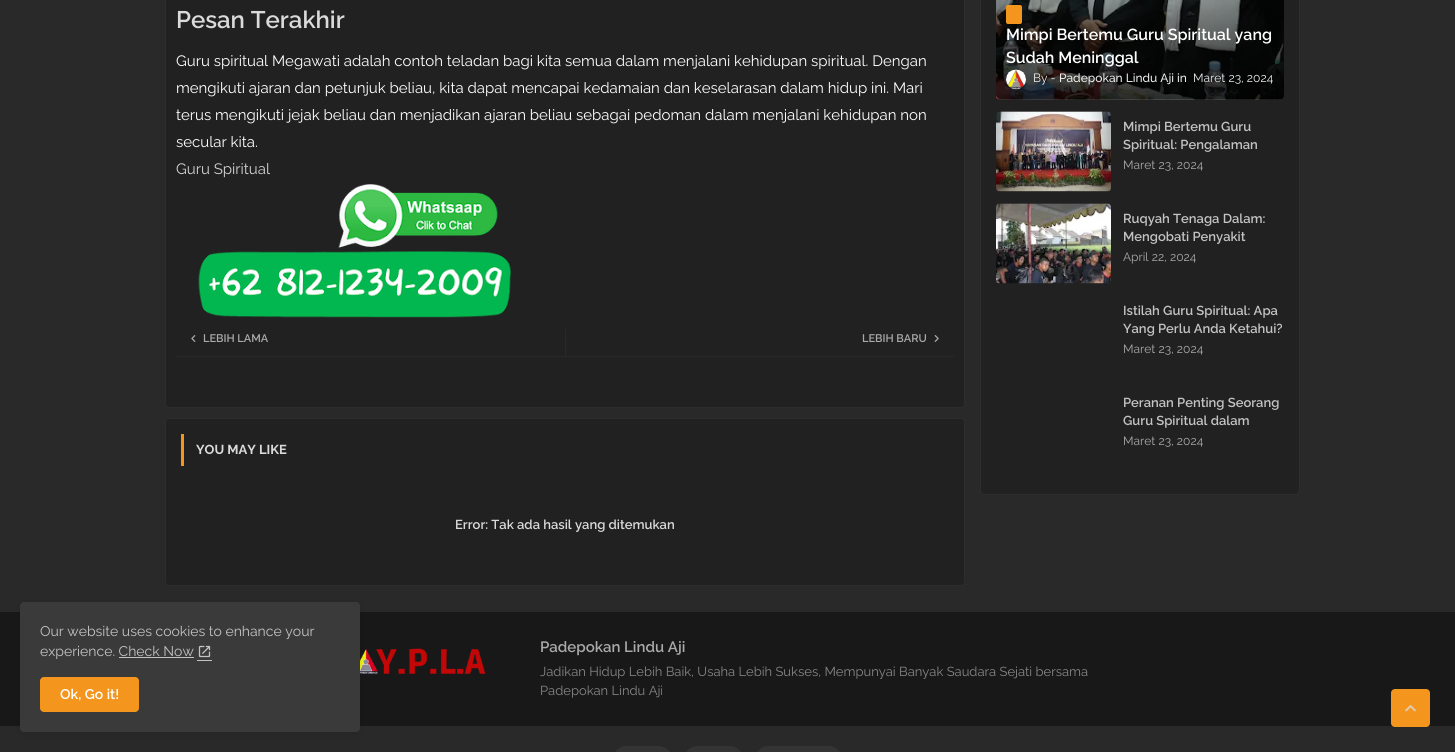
#include <cairo.h>
#include <math.h>
#include <stddef.h>


static void rgb(cairo_t *cr, int r, int g, int b)
{
	cairo_set_source_rgb(cr, r / 255.0, g / 255.0, b / 255.0);
}

static void face(cairo_t *cr, const char *family, double size, int italic, int bold)
{
	cairo_select_font_face(cr, family, italic ? CAIRO_FONT_SLANT_ITALIC : CAIRO_FONT_SLANT_NORMAL,
		bold ? CAIRO_FONT_WEIGHT_BOLD : CAIRO_FONT_WEIGHT_NORMAL);
	cairo_set_font_size(cr, size);
}

static void label(cairo_t *cr, double x, double y, const char *s)
{
	cairo_move_to(cr, x, y);
	cairo_show_text(cr, s);
}

static void rect(cairo_t *cr, double x, double y, double w, double h)
{
	cairo_rectangle(cr, x, y, w, h);
	cairo_fill(cr);
}

static void rrect(cairo_t *cr, double x, double y, double w, double h, double r)
{
	cairo_new_sub_path(cr);
	cairo_arc(cr, x + w - r, y + h - r, r, 0, M_PI / 2);
	cairo_arc(cr, x + r, y + h - r, r, M_PI / 2, M_PI);
	cairo_arc(cr, x + r, y + r, r, M_PI, 1.5 * M_PI);
	cairo_arc(cr, x + w - r, y + r, r, 1.5 * M_PI, 2 * M_PI);
	cairo_close_path(cr);
}

static void soft_shadow(cairo_t *cr, double x, double y, double w, double h, double r, double blur, double alpha)
{
	cairo_push_group_with_content(cr, CAIRO_CONTENT_ALPHA);
	cairo_set_operator(cr, CAIRO_OPERATOR_SOURCE);
	for (int i = 15; i >= -15 && fmin(w, h) + blur * i / 3 > 0; i -= 2) {
		double e = blur * i / 6;
		cairo_set_source_rgba(cr, 0, 0, 0, alpha * erfc((i - 1) / 8.5) / 2);
		rrect(cr, x - e, y - e, w + 2 * e, h + 2 * e, fmax(0, fmin(r + e + blur * .6, fmin(w, h) / 2 + e)));
		cairo_fill(cr);
	}
	cairo_pattern_t *soft = cairo_pop_group(cr);
	cairo_mask(cr, soft);
	cairo_pattern_destroy(soft);
}

static void image(cairo_t *cr, const char *path, double x, double y, double w, double h)
{
	cairo_surface_t *image = cairo_image_surface_create_from_png(path);
	cairo_save(cr);
	cairo_set_source_surface(cr, image, x, y);
	cairo_rectangle(cr, x, y, w, h);
	cairo_fill(cr);
	cairo_restore(cr);
	cairo_surface_destroy(image);
}

static void draw(cairo_t *cr) {
	cairo_pattern_t *gradient;
	rgb(cr, 41, 41, 41);
	cairo_paint(cr);
	rgb(cr, 33, 33, 33);
	rrect(cr, 165, -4, 800, 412, 4);
	cairo_fill(cr);
	rrect(cr, 165.5, -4.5, 799, 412, 3.5);
	cairo_set_source_rgba(cr, 0.427, 0.427, 0.427, 0.16);
	cairo_set_line_width(cr, 1);
	cairo_stroke(cr);
	face(cr, "Raleway SemiBold", 24, 0, 0);
	rgb(cr, 218, 218, 218);
	label(cr, 176, 28, "Pesan Terakhir");
	face(cr, "Raleway", 15, 0, 0);
	rgb(cr, 255, 255, 255);
	label(cr, 176, 66, "Guru spiritual Megawati adalah contoh teladan bagi kita semua dalam menjalani kehidupan spiritual. Dengan");
	label(cr, 176, 93, "mengikuti ajaran dan petunjuk beliau, kita dapat mencapai kedamaian dan keselarasan dalam hidup ini. Mari");
	label(cr, 176, 120, "terus mengikuti jejak beliau dan menjadikan ajaran beliau sebagai pedoman dalam menjalani kehidupan non");
	label(cr, 176, 147, "secular kita.");
	rgb(cr, 211, 211, 211);
	label(cr, 176, 174, "Guru Spiritual");
	image(cr, "image0.png", 198, 184, 314, 134);
	rgb(cr, 41, 41, 41);
	rect(cr, 176, 356, 778, 1);
	image(cr, "image1.png", 191, 335, 5, 7);
	face(cr, "Raleway SemiBold", 11, 0, 0);
	rgb(cr, 170, 170, 170);
	label(cr, 203, 342, "LEBIH LAMA");
	rgb(cr, 41, 41, 41);
	rect(cr, 565, 329, 1, 27);
	rgb(cr, 170, 170, 170);
	label(cr, 862, 342, "LEBIH BARU");
	image(cr, "image2.png", 934, 335, 5, 7);
	rgb(cr, 33, 33, 33);
	rrect(cr, 165, 418, 800, 168, 4);
	cairo_fill(cr);
	rrect(cr, 165.5, 418.5, 799, 167, 3.5);
	cairo_set_source_rgba(cr, 0.427, 0.427, 0.427, 0.16);
	cairo_stroke(cr);
	rgb(cr, 244, 150, 30);
	rect(cr, 181, 434, 3, 32);
	face(cr, "Raleway", 13, 0, 1);
	rgb(cr, 218, 218, 218);
	label(cr, 196, 454, "YOU MAY LIKE");
	face(cr, "Raleway SemiBold", 13, 0, 0);
	label(cr, 455, 529, "Error: Tak ada hasil yang ditemukan");
	rgb(cr, 33, 33, 33);
	rrect(cr, 980, -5, 320, 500, 5);
	cairo_fill(cr);
	rrect(cr, 980.5, -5.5, 319, 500, 4.5);
	cairo_set_source_rgba(cr, 0.427, 0.427, 0.427, 0.16);
	cairo_stroke(cr);
	image(cr, "image3.png", 996, 0, 288, 100);
	gradient = cairo_pattern_create_linear(1140, -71, 1140, 99);
	cairo_pattern_add_color_stop_rgba(gradient, 0, 0, 0, 0, 0);
	cairo_pattern_add_color_stop_rgba(gradient, 1, 0, 0, 0, 0.8);
	cairo_set_source(cr, gradient);
	cairo_pattern_destroy(gradient);
	cairo_new_path(cr);
	cairo_move_to(cr, 996, -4);
	cairo_line_to(cr, 1284, -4);
	cairo_line_to(cr, 1284, 95);
	cairo_curve_to(cr, 1284, 97, 1282, 99, 1280, 99);
	cairo_line_to(cr, 1000, 99);
	cairo_curve_to(cr, 998, 99, 996, 97, 996, 95);
	cairo_close_path(cr);
	cairo_fill(cr);
	rgb(cr, 244, 150, 30);
	rrect(cr, 1006, 5, 16, 19, 2);
	cairo_fill(cr);
	face(cr, "Raleway SemiBold", 16, 0, 0);
	rgb(cr, 255, 255, 255);
	label(cr, 1006, 40, "Mimpi Bertemu Guru Spiritual yang");
	label(cr, 1006, 63, "Sudah Meninggal");
	image(cr, "image4.png", 1006, 69, 20, 21);
	face(cr, "Raleway", 12, 0, 0);
	rgb(cr, 238, 238, 238);
	label(cr, 1033, 82, "By -");
	face(cr, "Raleway Medium", 12, 0, 0);
	label(cr, 1059, 82, "Padepokan Lindu Aji in");
	face(cr, "Raleway", 12, 0, 0);
	label(cr, 1193, 82, "Maret 23, 2024");
	image(cr, "image5.png", 996, 111, 115, 81);
	face(cr, "Raleway SemiBold", 13, 0, 0);
	rgb(cr, 195, 195, 195);
	label(cr, 1123, 131, "Mimpi Bertemu Guru");
	label(cr, 1123, 149, "Spiritual: Pengalaman");
	face(cr, "Raleway", 12, 0, 0);
	rgb(cr, 170, 170, 170);
	label(cr, 1123, 169, "Maret 23, 2024");
	image(cr, "image6.png", 996, 203, 115, 81);
	face(cr, "Raleway SemiBold", 13, 0, 0);
	rgb(cr, 195, 195, 195);
	label(cr, 1123, 223, "Ruqyah Tenaga Dalam:");
	label(cr, 1123, 241, "Mengobati Penyakit");
	face(cr, "Raleway", 12, 0, 0);
	rgb(cr, 170, 170, 170);
	label(cr, 1123, 261, "April 22, 2024");
	face(cr, "Raleway SemiBold", 13, 0, 0);
	rgb(cr, 195, 195, 195);
	label(cr, 1123, 315, "Istilah Guru Spiritual: Apa");
	label(cr, 1123, 333, "Yang Perlu Anda Ketahui?");
	face(cr, "Raleway", 12, 0, 0);
	rgb(cr, 170, 170, 170);
	label(cr, 1123, 353, "Maret 23, 2024");
	face(cr, "Raleway SemiBold", 13, 0, 0);
	rgb(cr, 195, 195, 195);
	label(cr, 1123, 407, "Peranan Penting Seorang");
	label(cr, 1123, 425, "Guru Spiritual dalam");
	face(cr, "Raleway", 12, 0, 0);
	rgb(cr, 170, 170, 170);
	label(cr, 1123, 445, "Maret 23, 2024");
	rgb(cr, 24, 24, 24);
	rect(cr, 0, 612, 1455, 114);
	image(cr, "image8.png", 360, 648, 126, 26);
	rgb(cr, 0, 0, 0);
	soft_shadow(cr, 20, 604, 340, 130, 4, 4, 0.11);
	rgb(cr, 58, 58, 58);
	rrect(cr, 20, 602, 340, 130, 4);
	cairo_fill(cr);
	face(cr, "Raleway", 14, 0, 0);
	rgb(cr, 195, 195, 195);
	label(cr, 40, 636, "Our website uses cookies to enhance your");
	label(cr, 40, 656, "experience. Check Now");
	image(cr, "image7.png", 198, 645, 13, 13);
	rect(cr, 119, 657, 75, 1);
	rect(cr, 197, 660, 15, 1);
	rgb(cr, 244, 150, 30);
	rrect(cr, 40, 677, 99, 35, 4);
	cairo_fill(cr);
	face(cr, "Raleway SemiBold", 14, 0, 0);
	rgb(cr, 255, 255, 255);
	label(cr, 60, 699, "Ok, Go it!");
	face(cr, "Raleway SemiBold", 15, 0, 0);
	rgb(cr, 170, 170, 170);
	label(cr, 540, 652, "Padepokan Lindu Aji");
	face(cr, "Raleway", 13, 0, 0);
	rgb(cr, 134, 134, 134);
	label(cr, 540, 676, "Jadikan Hidup Lebih Baik, Usaha Lebih Sukses, Mempunyai Banyak Saudara Sejati bersama");
	label(cr, 540, 695, "Padepokan Lindu Aji");
	rgb(cr, 52, 52, 52);
	rrect(cr, 612, 746, 61, 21, 15);
	cairo_fill(cr);
	rrect(cr, 683, 746, 61, 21, 15);
	cairo_fill(cr);
	rrect(cr, 754, 746, 89, 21, 15);
	cairo_fill(cr);
	rgb(cr, 244, 150, 30);
	rrect(cr, 1391, 689, 39, 38, 4);
	cairo_fill(cr);
	image(cr, "image9.png", 1405, 705, 11, 7);
}

int main(void) {
	cairo_surface_t *surface = cairo_image_surface_create(CAIRO_FORMAT_RGB24, 1455, 752);
	cairo_t *cr = cairo_create(surface);
	cairo_font_options_t *options = cairo_font_options_create();
	cairo_font_options_set_hint_metrics(options, CAIRO_HINT_METRICS_OFF);
	cairo_font_options_set_hint_style(options, CAIRO_HINT_STYLE_NONE);
	cairo_set_font_options(cr, options);
	cairo_set_miter_limit(cr, 4);
	draw(cr);
	cairo_surface_write_to_png(surface, "render.png");
	cairo_font_options_destroy(options);
	cairo_destroy(cr);
	cairo_surface_destroy(surface);
	return 0;
}
